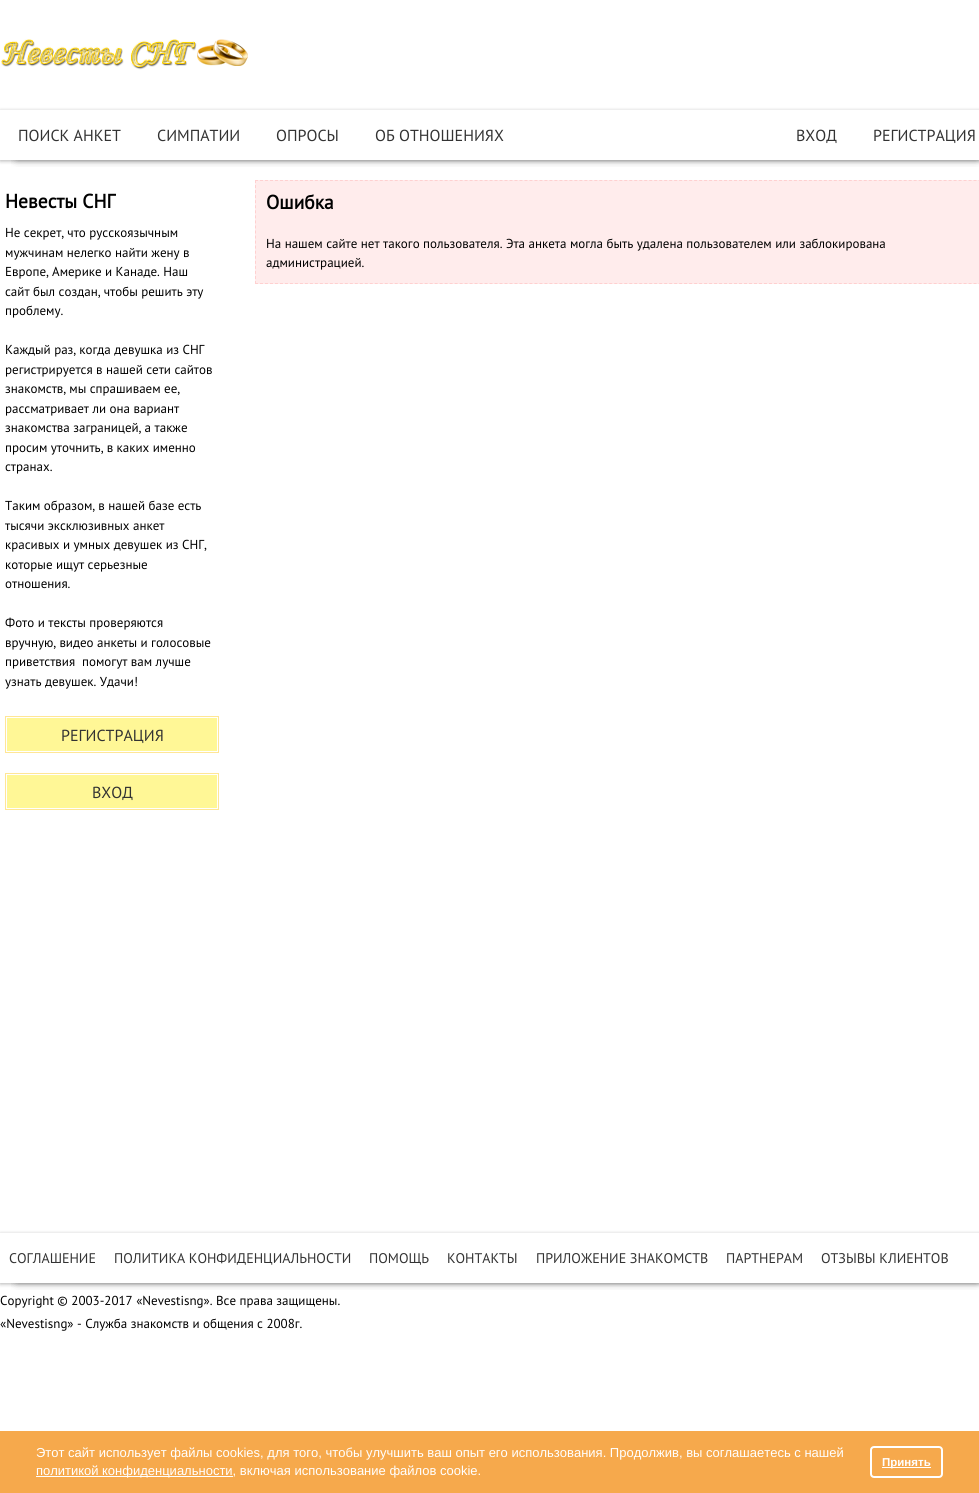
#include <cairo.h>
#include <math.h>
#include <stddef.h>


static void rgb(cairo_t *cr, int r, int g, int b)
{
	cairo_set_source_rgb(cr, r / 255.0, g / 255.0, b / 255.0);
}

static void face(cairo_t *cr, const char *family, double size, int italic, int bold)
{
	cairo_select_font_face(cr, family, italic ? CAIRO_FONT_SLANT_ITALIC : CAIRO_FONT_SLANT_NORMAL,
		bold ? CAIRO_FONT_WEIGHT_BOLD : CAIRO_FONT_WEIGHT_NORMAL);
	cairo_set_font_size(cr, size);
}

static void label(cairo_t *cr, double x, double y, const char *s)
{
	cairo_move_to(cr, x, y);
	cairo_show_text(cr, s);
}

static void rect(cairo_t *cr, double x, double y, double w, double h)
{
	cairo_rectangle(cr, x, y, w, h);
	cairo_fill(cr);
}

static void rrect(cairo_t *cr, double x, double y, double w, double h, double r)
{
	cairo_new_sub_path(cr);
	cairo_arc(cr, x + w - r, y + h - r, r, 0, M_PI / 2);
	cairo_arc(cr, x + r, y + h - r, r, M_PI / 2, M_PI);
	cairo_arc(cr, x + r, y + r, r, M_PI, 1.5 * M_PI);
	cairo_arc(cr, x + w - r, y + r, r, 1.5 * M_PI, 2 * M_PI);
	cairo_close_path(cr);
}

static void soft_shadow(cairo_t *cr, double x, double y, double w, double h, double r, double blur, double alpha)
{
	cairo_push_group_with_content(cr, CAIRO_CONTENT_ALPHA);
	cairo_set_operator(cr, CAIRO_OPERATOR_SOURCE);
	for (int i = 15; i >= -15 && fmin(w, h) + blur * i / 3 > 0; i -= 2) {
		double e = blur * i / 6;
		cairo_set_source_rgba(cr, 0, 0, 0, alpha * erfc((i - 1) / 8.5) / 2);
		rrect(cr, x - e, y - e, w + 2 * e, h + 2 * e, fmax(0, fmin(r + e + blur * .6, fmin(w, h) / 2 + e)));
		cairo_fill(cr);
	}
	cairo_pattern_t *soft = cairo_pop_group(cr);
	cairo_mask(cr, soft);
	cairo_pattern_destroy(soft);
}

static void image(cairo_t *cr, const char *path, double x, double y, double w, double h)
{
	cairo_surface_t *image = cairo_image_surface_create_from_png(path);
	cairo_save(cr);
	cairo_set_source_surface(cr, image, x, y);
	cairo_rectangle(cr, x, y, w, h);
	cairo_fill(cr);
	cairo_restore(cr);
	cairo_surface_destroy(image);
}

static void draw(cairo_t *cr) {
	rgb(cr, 255, 255, 255);
	cairo_paint(cr);
	image(cr, "image0.png", 1, 39, 247, 31);
	cairo_save(cr);
	cairo_set_fill_rule(cr, CAIRO_FILL_RULE_EVEN_ODD);
	cairo_new_path(cr);
	cairo_move_to(cr, 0, 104);
	cairo_line_to(cr, 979, 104);
	cairo_line_to(cr, 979, 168);
	cairo_line_to(cr, 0, 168);
	cairo_close_path(cr);
	cairo_move_to(cr, 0, 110);
	cairo_line_to(cr, 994, 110);
	cairo_line_to(cr, 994, 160);
	cairo_line_to(cr, 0, 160);
	cairo_close_path(cr);
	cairo_clip(cr);
	rgb(cr, 0, 0, 0);
	soft_shadow(cr, 0, 111, 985, 50, 0, 2, 0.3);
	cairo_restore(cr);
	cairo_save(cr);
	cairo_rectangle(cr, 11, 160, 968, 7);
	cairo_clip(cr);
	rgb(cr, 0, 0, 0);
	soft_shadow(cr, 17, 142, 960, 16, 0, 5, 0.5);
	cairo_restore(cr);
	face(cr, "PT Sans", 16, 0, 0);
	rgb(cr, 51, 51, 51);
	label(cr, 18, 141, "ПОИСК АНКЕТ");
	label(cr, 157, 141, "СИМПАТИИ");
	label(cr, 276, 141, "ОПРОСЫ");
	label(cr, 375, 141, "ОБ ОТНОШЕНИЯХ");
	label(cr, 796, 141, "ВХОД");
	label(cr, 873, 141, "РЕГИСТРАЦИЯ");
	face(cr, "PT Sans", 19.5, 0, 1);
	rgb(cr, 0, 0, 0);
	label(cr, 5, 208, "Невесты СНГ");
	face(cr, "PT Sans", 13, 0, 0);
	label(cr, 5, 237, "Не секрет, что русскоязычным");
	label(cr, 5, 257, "мужчинам нелегко найти жену в");
	label(cr, 5, 276, "Европе, Америке и Канаде. Наш");
	label(cr, 5, 296, "сайт был создан, чтобы решить эту");
	label(cr, 5, 315, "проблему.");
	label(cr, 5, 354, "Каждый раз, когда девушка из СНГ");
	label(cr, 5, 374, "регистрируется в нашей сети сайтов");
	label(cr, 5, 393, "знакомств, мы спрашиваем ее,");
	label(cr, 5, 413, "рассматривает ли она вариант");
	label(cr, 5, 432, "знакомства заграницей, а также");
	label(cr, 5, 452, "просим уточнить, в каких именно");
	label(cr, 5, 471, "странах.");
	label(cr, 5, 510, "Таким образом, в нашей базе есть");
	label(cr, 5, 530, "тысячи эксклюзивных анкет");
	label(cr, 5, 549, "красивых и умных девушек из СНГ,");
	label(cr, 5, 569, "которые ищут серьезные");
	label(cr, 5, 588, "отношения.");
	label(cr, 5, 627, "Фото и тексты проверяются");
	label(cr, 5, 647, "вручную, видео анкеты и голосовые");
	label(cr, 5, 666, "приветствия  помогут вам лучше");
	label(cr, 5, 686, "узнать девушек. Удачи!");
	rgb(cr, 255, 247, 150);
	rect(cr, 7, 718, 210, 33);
	cairo_rectangle(cr, 5.5, 716.5, 213, 36);
	rgb(cr, 255, 230, 150);
	cairo_set_line_width(cr, 1);
	cairo_stroke(cr);
	face(cr, "PT Sans", 16, 0, 0);
	rgb(cr, 51, 51, 51);
	label(cr, 61, 741, "РЕГИСТРАЦИЯ");
	rgb(cr, 255, 247, 150);
	rect(cr, 7, 775, 210, 33);
	cairo_rectangle(cr, 5.5, 773.5, 213, 36);
	rgb(cr, 255, 230, 150);
	cairo_stroke(cr);
	rgb(cr, 51, 51, 51);
	label(cr, 92, 798, "ВХОД");
	rgb(cr, 255, 236, 236);
	rect(cr, 255, 180, 724, 104);
	cairo_new_path(cr);
	cairo_move_to(cr, 255, 180.5);
	cairo_line_to(cr, 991, 180.5);
	rgb(cr, 255, 208, 208);
	cairo_set_dash(cr, (double[]){3, 1.99}, 2, 0);
	cairo_stroke(cr);
	cairo_new_path(cr);
	cairo_move_to(cr, 255, 283.5);
	cairo_line_to(cr, 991, 283.5);
	cairo_stroke(cr);
	cairo_new_path(cr);
	cairo_move_to(cr, 255.5, 180);
	cairo_line_to(cr, 255.5, 284);
	cairo_set_dash(cr, (double[]){3, 2.05}, 2, 0);
	cairo_stroke(cr);
	face(cr, "PT Sans", 19.5, 0, 1);
	rgb(cr, 0, 0, 0);
	label(cr, 266, 209, "Ошибка");
	face(cr, "PT Sans", 13, 0, 0);
	label(cr, 266, 248, "На нашем сайте нет такого пользователя. Эта анкета могла быть удалена пользователем или заблокирована");
	label(cr, 266, 267, "администрацией.");
	cairo_save(cr);
	cairo_set_fill_rule(cr, CAIRO_FILL_RULE_EVEN_ODD);
	cairo_new_path(cr);
	cairo_move_to(cr, 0, 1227);
	cairo_line_to(cr, 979, 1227);
	cairo_line_to(cr, 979, 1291);
	cairo_line_to(cr, 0, 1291);
	cairo_close_path(cr);
	cairo_move_to(cr, 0, 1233);
	cairo_line_to(cr, 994, 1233);
	cairo_line_to(cr, 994, 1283);
	cairo_line_to(cr, 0, 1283);
	cairo_close_path(cr);
	cairo_clip(cr);
	rgb(cr, 0, 0, 0);
	soft_shadow(cr, 0, 1234, 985, 50, 0, 2, 0.3);
	cairo_restore(cr);
	cairo_save(cr);
	cairo_rectangle(cr, 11, 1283, 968, 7);
	cairo_clip(cr);
	rgb(cr, 0, 0, 0);
	soft_shadow(cr, 17, 1265, 960, 16, 0, 5, 0.5);
	cairo_restore(cr);
	face(cr, "PT Sans", 14, 0, 0);
	rgb(cr, 51, 51, 51);
	label(cr, 9, 1263, "СОГЛАШЕНИЕ");
	label(cr, 114, 1263, "ПОЛИТИКА КОНФИДЕНЦИАЛЬНОСТИ");
	label(cr, 369, 1263, "ПОМОЩЬ");
	label(cr, 447, 1263, "КОНТАКТЫ");
	label(cr, 536, 1263, "ПРИЛОЖЕНИЕ ЗНАКОМСТВ");
	label(cr, 726, 1263, "ПАРТНЕРАМ");
	label(cr, 821, 1263, "ОТЗЫВЫ КЛИЕНТОВ");
	face(cr, "PT Sans", 13, 0, 0);
	rgb(cr, 0, 0, 0);
	label(cr, 0, 1305, "Copyright © 2003-2017 «Nevestisng». Все права защищены.");
	label(cr, 0, 1328, "«Nevestisng» - Служба знакомств и общения с 2008г.");
	rgb(cr, 246, 169, 76);
	rect(cr, 0, 1431, 979, 62);
	face(cr, "Liberation Sans", 13, 0, 0);
	rgb(cr, 255, 255, 255);
	label(cr, 36, 1457, "Этот сайт использует файлы cookies, для того, чтобы улучшить ваш опыт его использования. Продолжив, вы соглашаетесь с нашей");
	rect(cr, 36, 1476, 197, 1);
	label(cr, 36, 1475, "политикой конфиденциальности, включая использование файлов cookie.");
	rrect(cr, 871, 1447, 71, 30, 3);
	cairo_set_line_width(cr, 2);
	cairo_set_dash(cr, NULL, 0, 0);
	cairo_stroke(cr);
	rect(cr, 882, 1467, 49, 1);
	face(cr, "Liberation Sans", 11.5, 0, 1);
	label(cr, 882, 1466, "Принять");
}

int main(void) {
	cairo_surface_t *surface = cairo_image_surface_create(CAIRO_FORMAT_RGB24, 979, 1493);
	cairo_t *cr = cairo_create(surface);
	cairo_font_options_t *options = cairo_font_options_create();
	cairo_font_options_set_hint_metrics(options, CAIRO_HINT_METRICS_OFF);
	cairo_font_options_set_hint_style(options, CAIRO_HINT_STYLE_NONE);
	cairo_set_font_options(cr, options);
	cairo_set_miter_limit(cr, 4);
	draw(cr);
	cairo_surface_write_to_png(surface, "render.png");
	cairo_font_options_destroy(options);
	cairo_destroy(cr);
	cairo_surface_destroy(surface);
	return 0;
}
